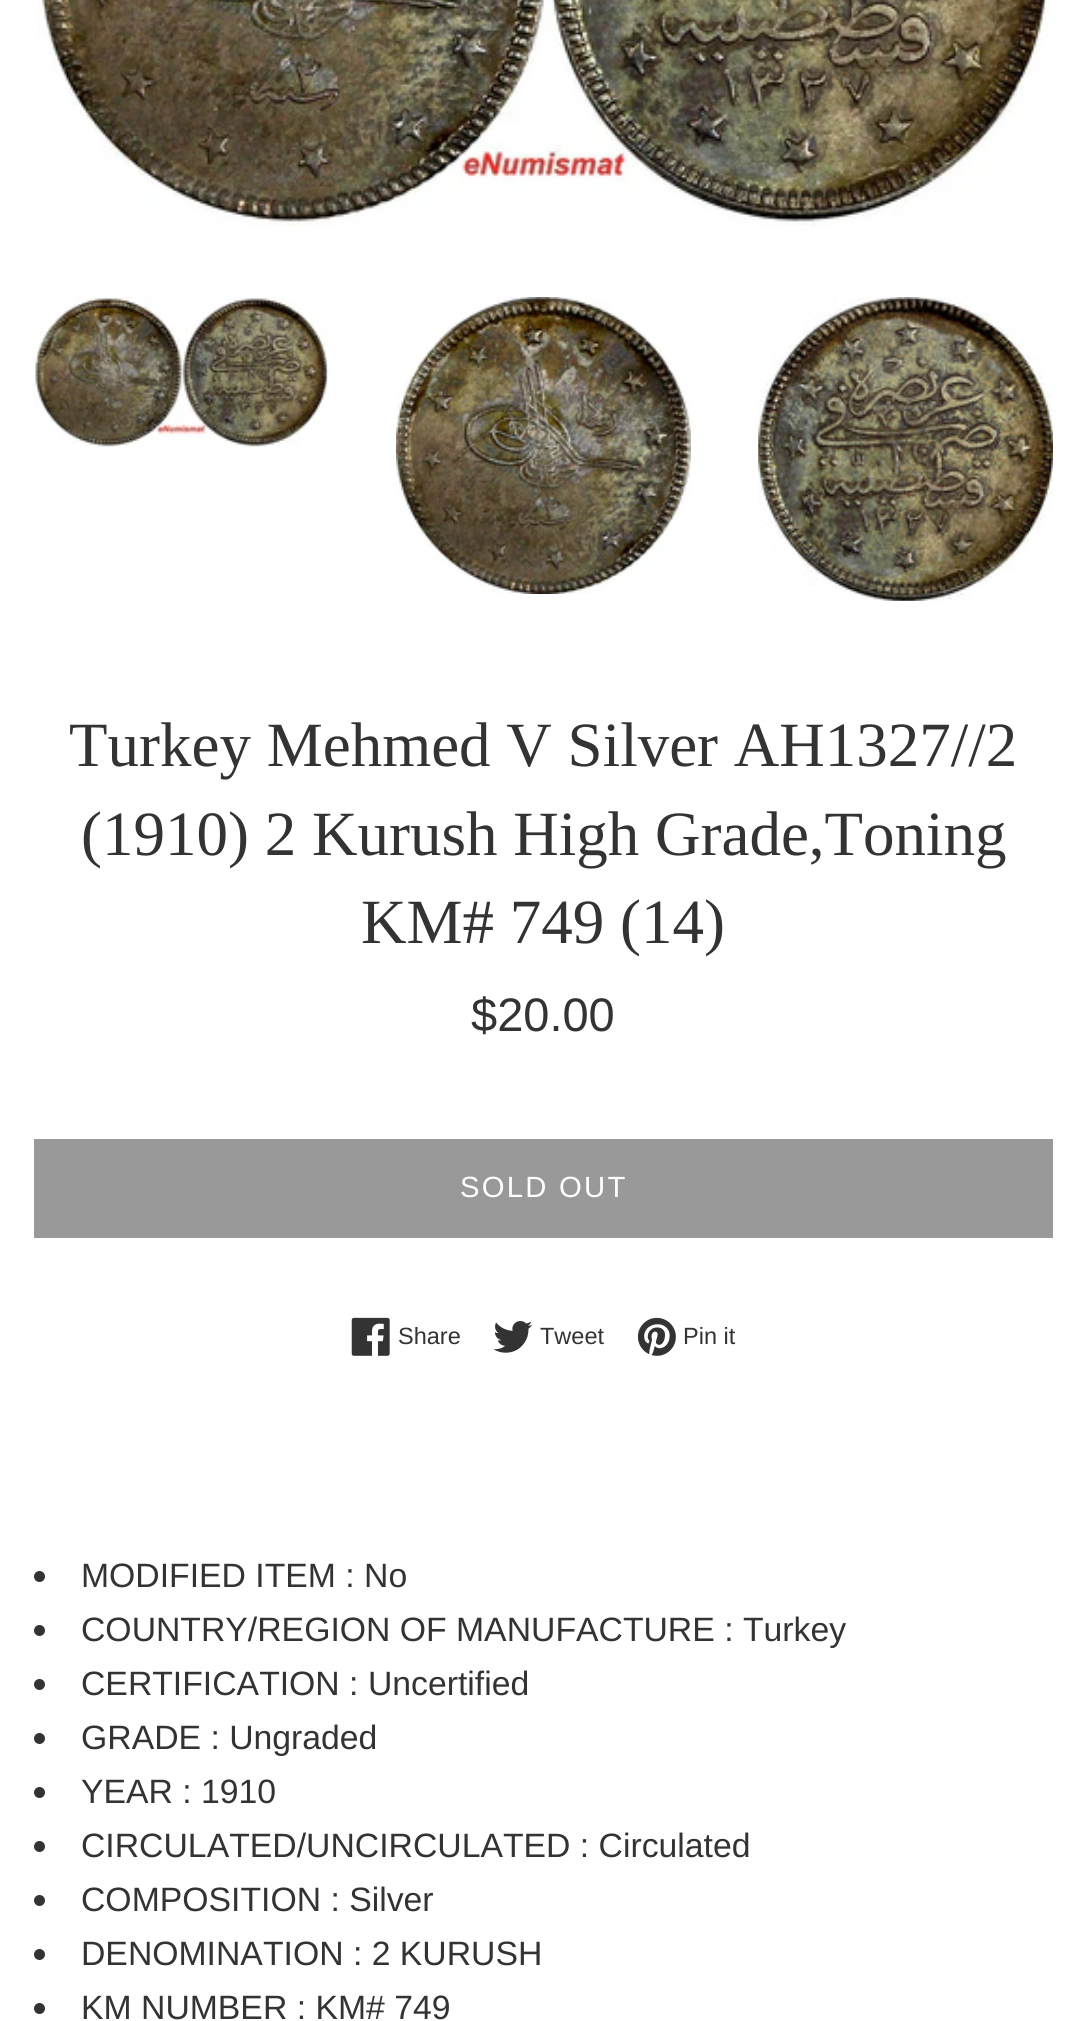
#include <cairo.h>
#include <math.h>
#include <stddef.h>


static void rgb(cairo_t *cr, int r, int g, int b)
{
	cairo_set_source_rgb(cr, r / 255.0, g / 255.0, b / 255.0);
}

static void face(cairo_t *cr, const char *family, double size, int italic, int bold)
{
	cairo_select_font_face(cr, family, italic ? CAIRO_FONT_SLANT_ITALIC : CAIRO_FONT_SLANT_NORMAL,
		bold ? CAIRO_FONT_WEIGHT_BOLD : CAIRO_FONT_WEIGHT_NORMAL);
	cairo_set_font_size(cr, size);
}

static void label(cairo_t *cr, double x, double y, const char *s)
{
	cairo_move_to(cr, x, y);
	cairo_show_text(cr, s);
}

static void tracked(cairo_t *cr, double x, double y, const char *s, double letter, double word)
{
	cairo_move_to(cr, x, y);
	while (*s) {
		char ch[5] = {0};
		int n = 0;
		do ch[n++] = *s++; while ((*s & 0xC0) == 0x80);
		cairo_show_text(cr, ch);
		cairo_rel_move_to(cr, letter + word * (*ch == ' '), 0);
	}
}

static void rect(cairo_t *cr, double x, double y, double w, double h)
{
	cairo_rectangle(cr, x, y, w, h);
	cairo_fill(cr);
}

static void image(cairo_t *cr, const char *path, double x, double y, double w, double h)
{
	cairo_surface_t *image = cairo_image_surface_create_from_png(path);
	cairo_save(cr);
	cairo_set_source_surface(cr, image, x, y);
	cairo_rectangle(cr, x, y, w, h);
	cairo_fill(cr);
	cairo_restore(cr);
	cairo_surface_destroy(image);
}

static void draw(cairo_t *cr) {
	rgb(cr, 255, 255, 255);
	cairo_paint(cr);
	image(cr, "image0.png", 38, 0, 1011, 227);
	image(cr, "image1.png", 34, 297, 295, 150);
	image(cr, "image2.png", 396, 297, 295, 297);
	image(cr, "image3.png", 758, 297, 295, 304);
	face(cr, "Liberation Serif", 63, 0, 0);
	rgb(cr, 51, 51, 51);
	label(cr, 69, 766, "Turkey Mehmed V Silver AH1327//2");
	label(cr, 81, 855, "(1910) 2 Kurush High Grade,Toning");
	label(cr, 361, 943, "KM# 749 (14)");
	face(cr, "Liberation Sans", 47, 0, 0);
	label(cr, 471, 1031, "$20.00");
	rgb(cr, 153, 153, 153);
	rect(cr, 34, 1139, 1019, 99);
	face(cr, "Liberation Sans", 29.25, 0, 0);
	rgb(cr, 255, 255, 255);
	tracked(cr, 460, 1197, "SOLD OUT", 2.25, 0);
	image(cr, "image4.png", 351, 1317, 39, 39);
	face(cr, "Liberation Sans", 23.5, 0, 0);
	rgb(cr, 51, 51, 51);
	label(cr, 398, 1344, "Share");
	image(cr, "image5.png", 493, 1321, 40, 32);
	label(cr, 540, 1344, "Tweet");
	image(cr, "image6.png", 637, 1317, 39, 39);
	label(cr, 683, 1344, "Pin it");
	cairo_new_path(cr);
	cairo_arc(cr, 39.5, 1576.5, 5.5, 0, 2 * M_PI);
	cairo_fill(cr);
	face(cr, "Liberation Sans", 33.75, 0, 0);
	label(cr, 81, 1587, "MODIFIED ITEM : No");
	cairo_new_path(cr);
	cairo_arc(cr, 39.5, 1630.5, 5.5, 0, 2 * M_PI);
	cairo_fill(cr);
	label(cr, 81, 1641, "COUNTRY/REGION OF MANUFACTURE : Turkey");
	cairo_new_path(cr);
	cairo_arc(cr, 39.5, 1684.5, 5.5, 0, 2 * M_PI);
	cairo_fill(cr);
	label(cr, 81, 1695, "CERTIFICATION : Uncertified");
	cairo_new_path(cr);
	cairo_arc(cr, 39.5, 1738.5, 5.5, 0, 2 * M_PI);
	cairo_fill(cr);
	label(cr, 81, 1749, "GRADE : Ungraded");
	cairo_new_path(cr);
	cairo_arc(cr, 39.5, 1792.5, 5.5, 0, 2 * M_PI);
	cairo_fill(cr);
	label(cr, 81, 1803, "YEAR : 1910");
	cairo_new_path(cr);
	cairo_arc(cr, 39.5, 1846.5, 5.5, 0, 2 * M_PI);
	cairo_fill(cr);
	label(cr, 81, 1857, "CIRCULATED/UNCIRCULATED : Circulated");
	cairo_new_path(cr);
	cairo_arc(cr, 39.5, 1900.5, 5.5, 0, 2 * M_PI);
	cairo_fill(cr);
	label(cr, 81, 1911, "COMPOSITION : Silver");
	cairo_new_path(cr);
	cairo_arc(cr, 39.5, 1954.5, 5.5, 0, 2 * M_PI);
	cairo_fill(cr);
	label(cr, 81, 1965, "DENOMINATION : 2 KURUSH");
	cairo_new_path(cr);
	cairo_arc(cr, 39.5, 2008.5, 5.5, 0, 2 * M_PI);
	cairo_fill(cr);
	label(cr, 81, 2019, "KM NUMBER : KM# 749");
}

int main(void) {
	cairo_surface_t *surface = cairo_image_surface_create(CAIRO_FORMAT_RGB24, 1085, 2021);
	cairo_t *cr = cairo_create(surface);
	cairo_font_options_t *options = cairo_font_options_create();
	cairo_font_options_set_hint_metrics(options, CAIRO_HINT_METRICS_OFF);
	cairo_font_options_set_hint_style(options, CAIRO_HINT_STYLE_NONE);
	cairo_set_font_options(cr, options);
	cairo_set_miter_limit(cr, 4);
	draw(cr);
	cairo_surface_write_to_png(surface, "render.png");
	cairo_font_options_destroy(options);
	cairo_destroy(cr);
	cairo_surface_destroy(surface);
	return 0;
}
